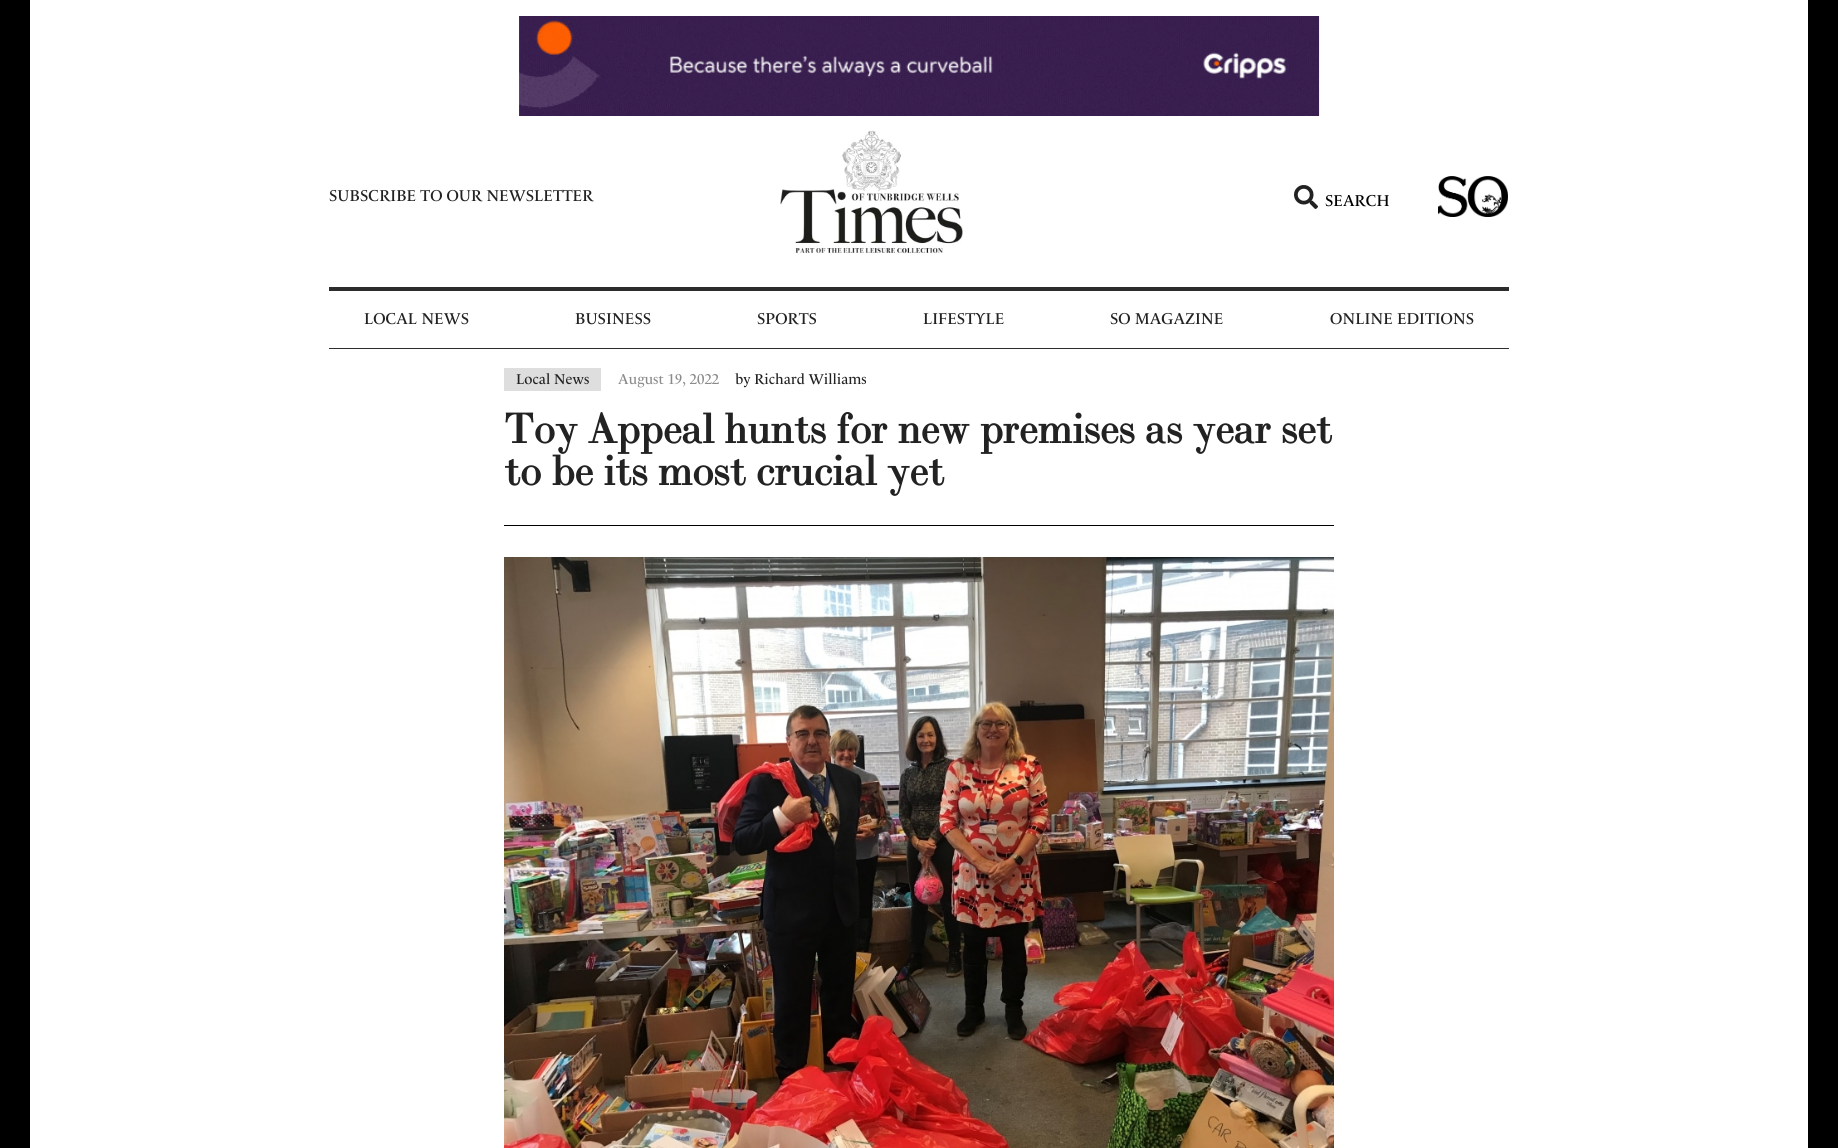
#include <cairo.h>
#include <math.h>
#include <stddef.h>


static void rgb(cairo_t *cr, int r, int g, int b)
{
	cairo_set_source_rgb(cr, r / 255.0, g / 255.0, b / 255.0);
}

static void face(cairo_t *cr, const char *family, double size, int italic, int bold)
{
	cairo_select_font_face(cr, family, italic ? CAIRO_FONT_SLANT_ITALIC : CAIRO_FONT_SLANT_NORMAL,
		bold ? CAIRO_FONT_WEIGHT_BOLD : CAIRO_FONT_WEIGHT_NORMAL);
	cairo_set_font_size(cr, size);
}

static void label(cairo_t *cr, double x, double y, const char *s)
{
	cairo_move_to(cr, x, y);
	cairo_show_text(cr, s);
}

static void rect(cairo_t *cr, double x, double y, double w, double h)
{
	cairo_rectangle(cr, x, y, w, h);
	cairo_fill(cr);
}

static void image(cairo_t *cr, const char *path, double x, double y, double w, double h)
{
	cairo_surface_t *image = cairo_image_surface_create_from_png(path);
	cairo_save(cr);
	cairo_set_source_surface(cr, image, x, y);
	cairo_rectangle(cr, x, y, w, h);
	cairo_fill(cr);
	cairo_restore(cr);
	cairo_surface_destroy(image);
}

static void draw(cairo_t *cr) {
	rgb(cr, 255, 255, 255);
	cairo_paint(cr);
	rgb(cr, 0, 0, 0);
	rect(cr, 1808, 0, 30, 1148);
	rect(cr, 0, 0, 30, 1148);
	image(cr, "image0.png", 519, 16, 801, 100);
	face(cr, "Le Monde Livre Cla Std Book", 16, 0, 0);
	rgb(cr, 34, 34, 34);
	label(cr, 329, 201, "SUBSCRIBE TO OUR NEWSLETTER");
	image(cr, "image1.png", 780, 130, 183, 124);
	image(cr, "image2.png", 1294, 185, 24, 24);
	rgb(cr, 0, 0, 0);
	label(cr, 1325, 206, "SEARCH");
	image(cr, "image3.png", 1438, 176, 70, 41);
	rgb(cr, 44, 44, 44);
	rect(cr, 329, 287, 1180, 4);
	rect(cr, 329, 348, 1180, 1);
	rgb(cr, 34, 34, 34);
	label(cr, 364, 324, "LOCAL NEWS");
	label(cr, 575, 324, "BUSINESS");
	label(cr, 757, 324, "SPORTS");
	label(cr, 923, 324, "LIFESTYLE");
	label(cr, 1110, 324, "SO MAGAZINE");
	label(cr, 1330, 324, "ONLINE EDITIONS");
	rgb(cr, 222, 222, 222);
	rect(cr, 504, 368, 97, 23);
	face(cr, "Le Monde Livre Cla Std Book", 14.5, 0, 0);
	rgb(cr, 34, 34, 34);
	label(cr, 516, 384, "Local News");
	rgb(cr, 139, 139, 139);
	label(cr, 618, 384, "August 19, 2022");
	rgb(cr, 34, 34, 34);
	label(cr, 735, 384, "by Richard Williams");
	face(cr, "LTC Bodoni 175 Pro", 41.6, 0, 1);
	label(cr, 504, 443, "Toy Appeal hunts for new premises as year set");
	label(cr, 504, 485, "to be its most crucial yet");
	rgb(cr, 0, 0, 0);
	rect(cr, 504, 525, 830, 1);
	image(cr, "image4.png", 504, 557, 830, 591);
}

int main(void) {
	cairo_surface_t *surface = cairo_image_surface_create(CAIRO_FORMAT_RGB24, 1838, 1148);
	cairo_t *cr = cairo_create(surface);
	cairo_font_options_t *options = cairo_font_options_create();
	cairo_font_options_set_hint_metrics(options, CAIRO_HINT_METRICS_OFF);
	cairo_font_options_set_hint_style(options, CAIRO_HINT_STYLE_NONE);
	cairo_set_font_options(cr, options);
	cairo_set_miter_limit(cr, 4);
	draw(cr);
	cairo_surface_write_to_png(surface, "render.png");
	cairo_font_options_destroy(options);
	cairo_destroy(cr);
	cairo_surface_destroy(surface);
	return 0;
}
